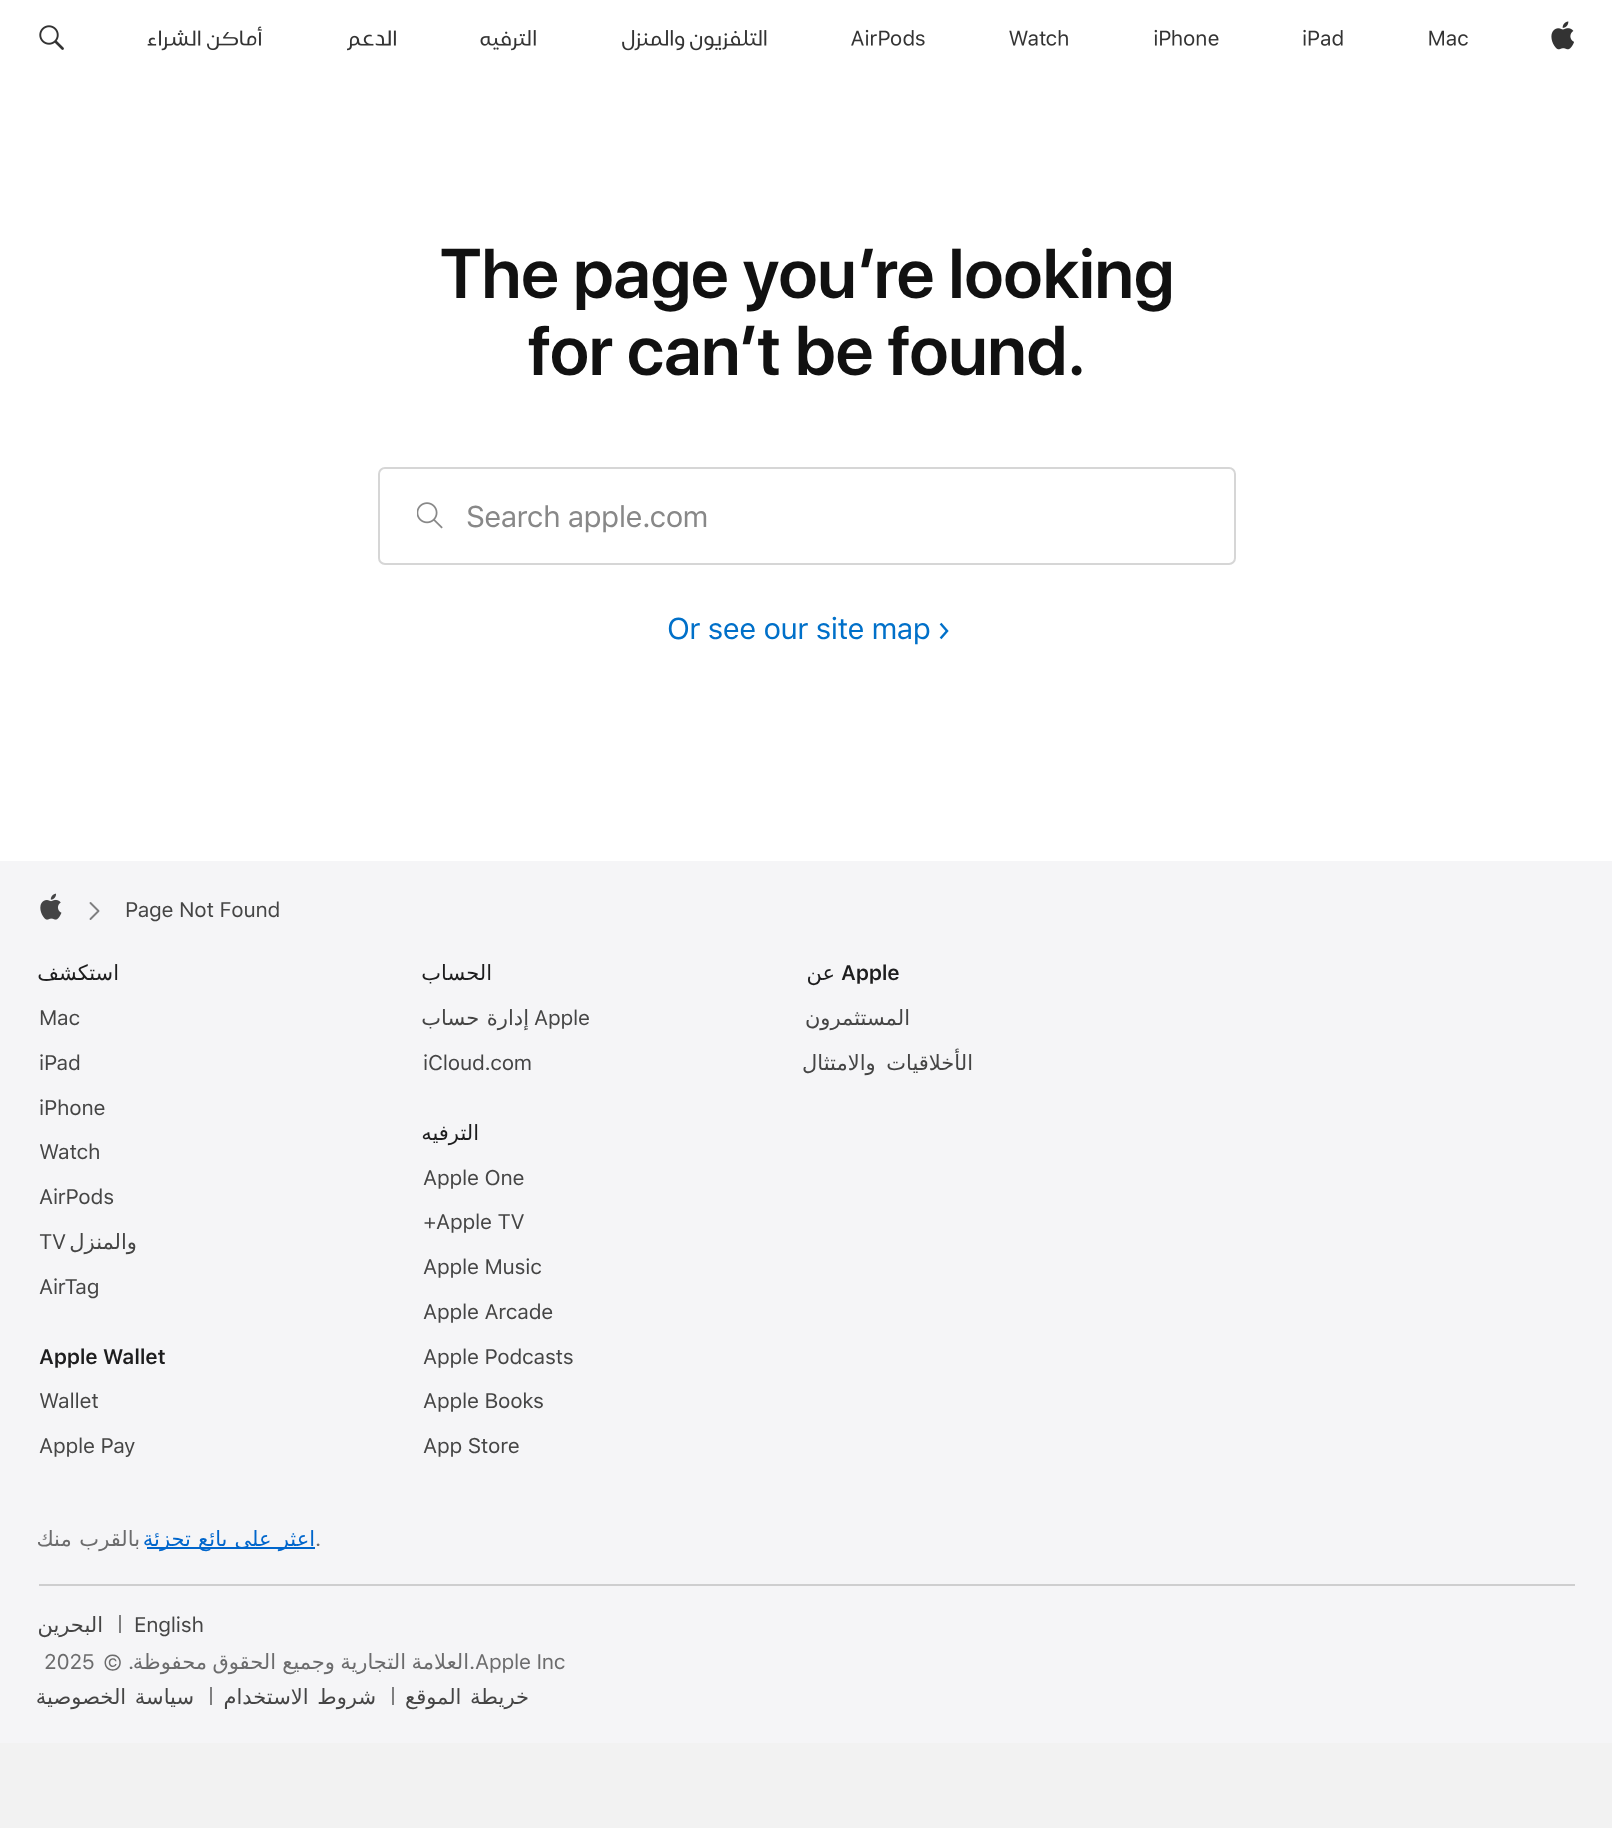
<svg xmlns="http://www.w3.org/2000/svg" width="1612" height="1828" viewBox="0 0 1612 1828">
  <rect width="100%" height="100%" fill="rgb(242,242,242)"/>
  <rect x="0" y="0" width="1612" height="861" fill="rgb(255,255,255)"/>
  <image x="39" y="25" width="25" height="25" href="pic1.png"/>
  <image x="147" y="26" width="115" height="25" href="pic2.png"/>
  <image x="347" y="30" width="49" height="21" href="pic3.png"/>
  <image x="480" y="30" width="56" height="21" href="pic4.png"/>
  <image x="622" y="30" width="145" height="21" href="pic5.png"/>
  <image x="851" y="29" width="74" height="17" href="pic6.png"/>
  <image x="1009" y="30" width="59" height="16" href="pic7.png"/>
  <image x="1154" y="29" width="65" height="17" href="pic8.png"/>
  <image x="1303" y="29" width="40" height="17" href="pic9.png"/>
  <image x="1429" y="30" width="39" height="16" href="pic10.png"/>
  <image x="1551" y="21" width="23" height="29" href="pic11.png"/>
  <g font-family="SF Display" font-size="70" font-weight="600" fill="rgb(17,17,17)">
    <text x="440" y="298">The page you’re looking</text>
    <text x="528" y="375">for can’t be found.</text>
  </g>
  <rect x="379" y="468" width="856" height="96" rx="6" fill="none" stroke="rgb(214,214,214)" stroke-width="2"/>
  <image x="417" y="502" width="26" height="27" href="pic12.png"/>
  <text x="466" y="527" font-family="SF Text" font-size="29.75" letter-spacing="-0.6" fill="rgb(136,136,136)">Search apple.com</text>
  <text x="667" y="639" font-family="SF Text" font-size="29.75" letter-spacing="-0.6" fill="rgb(0,112,201)">Or see our site map</text>
  <image x="939" y="622" width="10" height="18" href="pic13.png"/>
  <rect x="0" y="861" width="1612" height="882" fill="rgb(245,245,247)"/>
  <image x="40" y="893" width="22" height="27" href="pic14.png"/>
  <path d="M90.5 903L98.5 911L90.5 919" fill="none" stroke="rgb(127,127,128)" stroke-width="1.9" stroke-linecap="round" stroke-linejoin="round"/>
  <text x="125" y="917" font-family="SF Text" font-size="21" letter-spacing="-0.25" fill="rgb(69,69,69)">Page Not Found</text>
  <text x="119" y="980" font-family="DejaVu Sans" font-size="21" letter-spacing="-0.25" direction="rtl" fill="rgb(29,29,30)">استكشف</text>
  <g font-family="SF Text" font-size="21" letter-spacing="-0.25" fill="rgb(69,69,69)">
    <text x="39" y="1025">Mac</text>
    <text x="39" y="1070">iPad</text>
    <text x="39" y="1115">iPhone</text>
    <text x="39" y="1159">Watch</text>
    <text x="39" y="1204">AirPods</text>
    <text x="39" y="1249">TV</text>
  </g>
  <text x="137" y="1249" font-family="DejaVu Sans" font-size="21" letter-spacing="-0.25" direction="rtl" fill="rgb(69,69,69)">والمنزل</text>
  <text x="39" y="1294" font-family="SF Text" font-size="21" letter-spacing="-0.25" fill="rgb(69,69,69)">AirTag</text>
  <text x="39" y="1364" font-family="SF Text" font-size="21" font-weight="600" letter-spacing="-0.25" fill="rgb(29,29,30)">Apple Wallet</text>
  <g font-family="SF Text" font-size="21" letter-spacing="-0.25" fill="rgb(69,69,69)">
    <text x="39" y="1408">Wallet</text>
    <text x="39" y="1453">Apple Pay</text>
  </g>
  <text x="492" y="980" font-family="DejaVu Sans" font-size="21" letter-spacing="-0.25" direction="rtl" fill="rgb(29,29,30)">الحساب</text>
  <text x="529" y="1025" word-spacing="1" font-family="DejaVu Sans" font-size="21" letter-spacing="-0.25" direction="rtl" fill="rgb(69,69,69)">إدارة حساب</text>
  <g font-family="SF Text" font-size="21" letter-spacing="-0.25" fill="rgb(69,69,69)">
    <text x="534" y="1025">Apple</text>
    <text x="423" y="1070">iCloud.com</text>
  </g>
  <text x="479" y="1140" font-family="DejaVu Sans" font-size="21" letter-spacing="-0.25" direction="rtl" fill="rgb(29,29,30)">الترفيه</text>
  <g font-family="SF Text" font-size="21" letter-spacing="-0.25" fill="rgb(69,69,69)">
    <text x="423" y="1185">Apple One</text>
    <text x="423" y="1229">+Apple TV</text>
    <text x="423" y="1274">Apple Music</text>
    <text x="423" y="1319">Apple Arcade</text>
    <text x="423" y="1364">Apple Podcasts</text>
    <text x="423" y="1408">Apple Books</text>
    <text x="423" y="1453">App Store</text>
  </g>
  <text x="835" y="980" font-family="DejaVu Sans" font-size="21" letter-spacing="-0.25" direction="rtl" fill="rgb(29,29,30)">عن</text>
  <text x="841" y="980" font-family="SF Text" font-size="21" font-weight="600" letter-spacing="-0.25" fill="rgb(29,29,30)">Apple</text>
  <g font-family="DejaVu Sans" font-size="21" letter-spacing="-0.25" direction="rtl" fill="rgb(69,69,69)">
    <text x="910" y="1025">المستثمرون</text>
    <text x="973" y="1070" word-spacing="4">الأخلاقيات والامتثال</text>
  </g>
  <rect x="39" y="1584" width="1536" height="2" fill="rgb(206,206,207)"/>
  <text x="140" y="1546" word-spacing="1" font-family="DejaVu Sans" font-size="21" letter-spacing="-0.25" direction="rtl" fill="rgb(108,108,109)">بالقرب منك</text>
  <rect x="147" y="1547" width="168" height="2" fill="rgb(0,102,204)"/>
  <text x="315" y="1546" word-spacing="0.5" font-family="DejaVu Sans" font-size="21" letter-spacing="-0.25" direction="rtl" fill="rgb(0,102,204)">اعثر على بائع تجزئة</text>
  <text x="315" y="1546" font-family="SF Text" font-size="21" letter-spacing="-0.25" fill="rgb(108,108,109)">.</text>
  <text x="103" y="1632" font-family="DejaVu Sans" font-size="21" letter-spacing="-0.25" direction="rtl" fill="rgb(69,69,69)">البحرين</text>
  <rect x="119" y="1615" width="2" height="18" fill="rgb(127,127,128)"/>
  <text x="134" y="1632" font-family="SF Text" font-size="21" letter-spacing="-0.25" fill="rgb(69,69,69)">English</text>
  <text x="44" y="1669" font-family="SF Text" font-size="21" letter-spacing="-0.25" fill="rgb(108,108,109)">2025</text>
  <text x="134" y="1669" word-spacing="1" font-family="SF Text" font-size="21" letter-spacing="-0.25" direction="rtl" fill="rgb(108,108,109)">. ©</text>
  <g font-family="DejaVu Sans" font-size="21" letter-spacing="-0.25" direction="rtl" fill="rgb(108,108,109)">
    <text x="207" y="1669">محفوظة</text>
    <text x="276" y="1669">الحقوق</text>
    <text x="335" y="1669">وجميع</text>
    <text x="406" y="1669">التجارية</text>
    <text x="469" y="1669">العلامة</text>
  </g>
  <text x="469" y="1669" font-family="SF Text" font-size="21" letter-spacing="-0.25" fill="rgb(108,108,109)">.Apple Inc</text>
  <text x="194" y="1704" word-spacing="2" font-family="DejaVu Sans" font-size="21" letter-spacing="-0.25" direction="rtl" fill="rgb(69,69,69)">سياسة الخصوصية</text>
  <rect x="210" y="1687" width="2" height="18" fill="rgb(127,127,128)"/>
  <text x="376" y="1704" word-spacing="2" font-family="DejaVu Sans" font-size="21" letter-spacing="-0.25" direction="rtl" fill="rgb(69,69,69)">شروط الاستخدام</text>
  <rect x="392" y="1687" width="2" height="18" fill="rgb(127,127,128)"/>
  <text x="529" y="1704" word-spacing="2" font-family="DejaVu Sans" font-size="21" letter-spacing="-0.25" direction="rtl" fill="rgb(69,69,69)">خريطة الموقع</text>
</svg>
